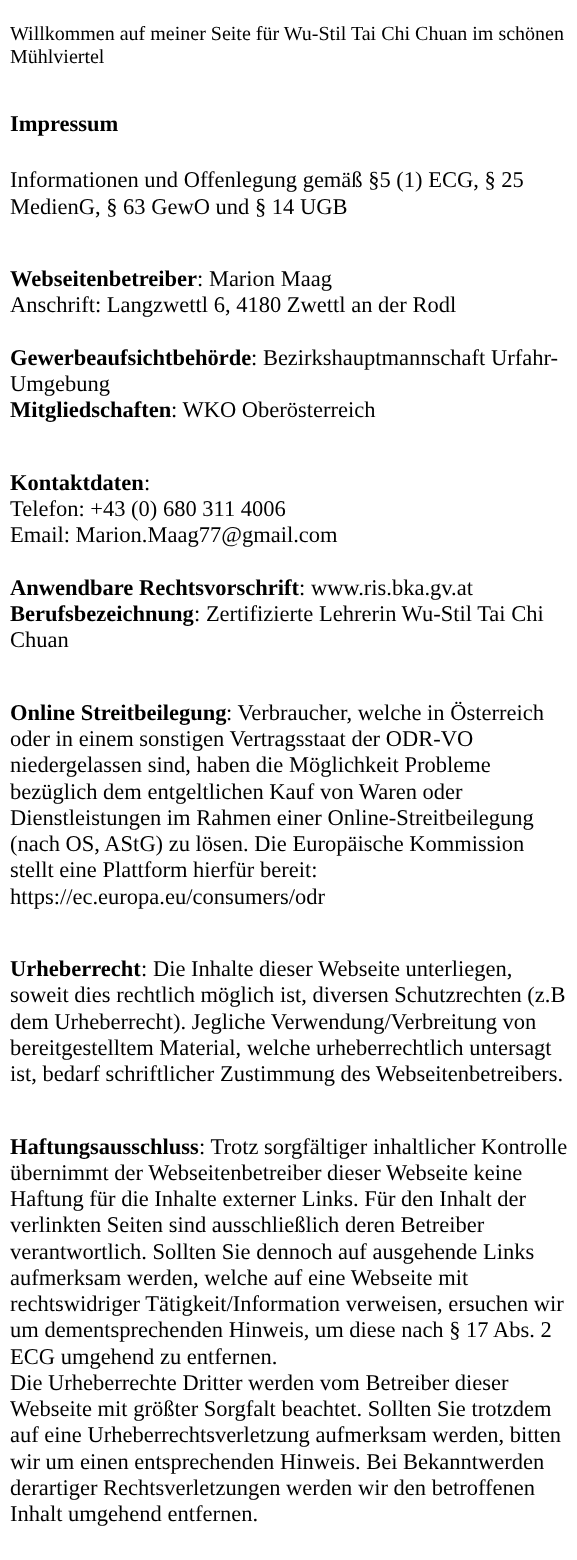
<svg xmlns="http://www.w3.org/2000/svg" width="577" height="1560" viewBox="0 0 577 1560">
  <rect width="100%" height="100%" fill="rgb(255,255,255)"/>
  <g font-family="Liberation Serif" font-size="20" fill="rgb(0,0,0)">
    <text>
      <tspan x="10" y="40">Willkommen auf meiner Seite für Wu-Stil Tai Chi Chuan im schönen</tspan>
      <tspan x="10" y="63">Mühlviertel</tspan>
    </text>
  </g>
  <text x="10" y="131" font-family="Liberation Serif" font-size="22.5" font-weight="bold" fill="rgb(0,0,0)">Impressum</text>
  <g font-family="Liberation Serif" font-size="22.5" fill="rgb(0,0,0)">
    <text>
      <tspan x="10" y="187">Informationen und Offenlegung gemäß §5 (1) ECG, § 25</tspan>
      <tspan x="10" y="214">MedienG, § 63 GewO und § 14 UGB</tspan>
    </text>
  </g>
  <text x="10" y="286" font-family="Liberation Serif" font-size="22.5" font-weight="bold" fill="rgb(0,0,0)">Webseitenbetreiber</text>
  <g font-family="Liberation Serif" font-size="22.5" fill="rgb(0,0,0)">
    <text x="197" y="286">: Marion Maag</text>
    <text x="10" y="312">Anschrift: Langzwettl 6, 4180 Zwettl an der Rodl</text>
  </g>
  <text x="10" y="365" font-family="Liberation Serif" font-size="22.5" font-weight="bold" fill="rgb(0,0,0)">Gewerbeaufsichtbehörde</text>
  <g font-family="Liberation Serif" font-size="22.5" fill="rgb(0,0,0)">
    <text x="251" y="365">: Bezirkshauptmannschaft Urfahr-</text>
    <text x="10" y="391">Umgebung</text>
  </g>
  <text x="10" y="417" font-family="Liberation Serif" font-size="22.5" font-weight="bold" fill="rgb(0,0,0)">Mitgliedschaften</text>
  <text x="171" y="417" font-family="Liberation Serif" font-size="22.5" fill="rgb(0,0,0)">: WKO Oberösterreich</text>
  <text x="10" y="490" font-family="Liberation Serif" font-size="22.5" font-weight="bold" fill="rgb(0,0,0)">Kontaktdaten</text>
  <g font-family="Liberation Serif" font-size="22.5" fill="rgb(0,0,0)">
    <text x="144" y="490">:</text>
    <text>
      <tspan x="10" y="516">Telefon: +43 (0) 680 311 4006</tspan>
      <tspan x="10" y="542">Email: Marion.Maag77@gmail.com</tspan>
    </text>
  </g>
  <text x="10" y="595" font-family="Liberation Serif" font-size="22.5" font-weight="bold" fill="rgb(0,0,0)">Anwendbare Rechtsvorschrift</text>
  <text x="299" y="595" font-family="Liberation Serif" font-size="22.5" fill="rgb(0,0,0)">: www.ris.bka.gv.at</text>
  <text x="10" y="621" font-family="Liberation Serif" font-size="22.5" font-weight="bold" fill="rgb(0,0,0)">Berufsbezeichnung</text>
  <g font-family="Liberation Serif" font-size="22.5" fill="rgb(0,0,0)">
    <text x="194" y="621">: Zertifizierte Lehrerin Wu-Stil Tai Chi</text>
    <text x="10" y="647">Chuan</text>
  </g>
  <text x="10" y="720" font-family="Liberation Serif" font-size="22.5" font-weight="bold" fill="rgb(0,0,0)">Online Streitbeilegung</text>
  <g font-family="Liberation Serif" font-size="22.5" fill="rgb(0,0,0)">
    <text x="226" y="720">: Verbraucher, welche in Österreich</text>
    <text>
      <tspan x="10" y="746">oder in einem sonstigen Vertragsstaat der ODR-VO</tspan>
      <tspan x="10" y="772">niedergelassen sind, haben die Möglichkeit Probleme</tspan>
      <tspan x="10" y="799">bezüglich dem entgeltlichen Kauf von Waren oder</tspan>
      <tspan x="10" y="825">Dienstleistungen im Rahmen einer Online-Streitbeilegung</tspan>
      <tspan x="10" y="851">(nach OS, AStG) zu lösen. Die Europäische Kommission</tspan>
      <tspan x="10" y="877">stellt eine Plattform hierfür bereit:</tspan>
      <tspan x="10" y="904">https://ec.europa.eu/consumers/odr</tspan>
    </text>
  </g>
  <text x="10" y="976" font-family="Liberation Serif" font-size="22.5" font-weight="bold" fill="rgb(0,0,0)">Urheberrecht</text>
  <g font-family="Liberation Serif" font-size="22.5" fill="rgb(0,0,0)">
    <text x="141" y="976">: Die Inhalte dieser Webseite unterliegen,</text>
    <text>
      <tspan x="10" y="1002">soweit dies rechtlich möglich ist, diversen Schutzrechten (z.B</tspan>
      <tspan x="10" y="1029">dem Urheberrecht). Jegliche Verwendung/Verbreitung von</tspan>
      <tspan x="10" y="1055">bereitgestelltem Material, welche urheberrechtlich untersagt</tspan>
      <tspan x="10" y="1081">ist, bedarf schriftlicher Zustimmung des Webseitenbetreibers.</tspan>
    </text>
  </g>
  <text x="10" y="1154" font-family="Liberation Serif" font-size="22.5" font-weight="bold" fill="rgb(0,0,0)">Haftungsausschluss</text>
  <g font-family="Liberation Serif" font-size="22.5" fill="rgb(0,0,0)">
    <text x="199" y="1154">: Trotz sorgfältiger inhaltlicher Kontrolle</text>
    <text>
      <tspan x="10" y="1180">übernimmt der Webseitenbetreiber dieser Webseite keine</tspan>
      <tspan x="10" y="1206">Haftung für die Inhalte externer Links. Für den Inhalt der</tspan>
      <tspan x="10" y="1232">verlinkten Seiten sind ausschließlich deren Betreiber</tspan>
      <tspan x="10" y="1259">verantwortlich. Sollten Sie dennoch auf ausgehende Links</tspan>
      <tspan x="10" y="1285">aufmerksam werden, welche auf eine Webseite mit</tspan>
      <tspan x="10" y="1311">rechtswidriger Tätigkeit/Information verweisen, ersuchen wir</tspan>
      <tspan x="10" y="1337">um dementsprechenden Hinweis, um diese nach § 17 Abs. 2</tspan>
      <tspan x="10" y="1364">ECG umgehend zu entfernen.</tspan>
      <tspan x="10" y="1390">Die Urheberrechte Dritter werden vom Betreiber dieser</tspan>
      <tspan x="10" y="1416">Webseite mit größter Sorgfalt beachtet. Sollten Sie trotzdem</tspan>
      <tspan x="10" y="1442">auf eine Urheberrechtsverletzung aufmerksam werden, bitten</tspan>
      <tspan x="10" y="1469">wir um einen entsprechenden Hinweis. Bei Bekanntwerden</tspan>
      <tspan x="10" y="1495">derartiger Rechtsverletzungen werden wir den betroffenen</tspan>
      <tspan x="10" y="1521">Inhalt umgehend entfernen.</tspan>
    </text>
  </g>
</svg>
